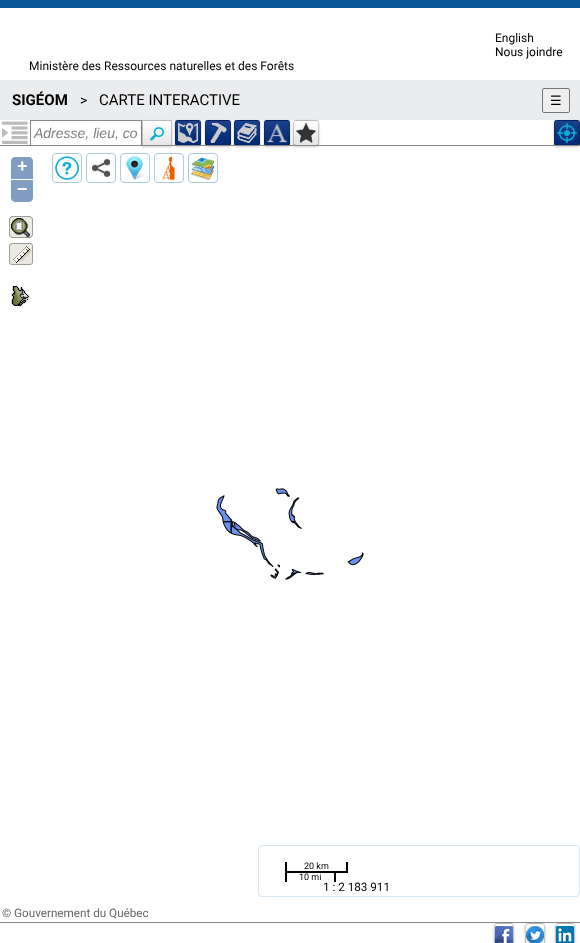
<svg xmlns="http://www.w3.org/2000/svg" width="580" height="943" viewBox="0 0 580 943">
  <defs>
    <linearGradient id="g1" gradientUnits="userSpaceOnUse" x1="157" y1="121" x2="157" y2="97"><stop offset="0" stop-color="rgb(230,230,230)"/><stop offset="1" stop-color="rgb(255,255,255)"/></linearGradient>
    <linearGradient id="g2" gradientUnits="userSpaceOnUse" x1="157" y1="145" x2="157" y2="121"><stop offset="0" stop-color="rgb(230,230,230)"/><stop offset="1" stop-color="rgb(255,255,255)"/></linearGradient>
    <linearGradient id="g3" gradientUnits="userSpaceOnUse" x1="188" y1="121" x2="188" y2="97"><stop offset="0" stop-color="rgb(0,0,0)" stop-opacity="0.1"/><stop offset="1" stop-color="rgb(255,255,255)" stop-opacity="0.1"/></linearGradient>
    <linearGradient id="g4" gradientUnits="userSpaceOnUse" x1="188" y1="145" x2="188" y2="121"><stop offset="0" stop-color="rgb(0,0,0)" stop-opacity="0.1"/><stop offset="1" stop-color="rgb(255,255,255)" stop-opacity="0.1"/></linearGradient>
    <linearGradient id="g5" gradientUnits="userSpaceOnUse" x1="218" y1="121" x2="218" y2="97"><stop offset="0" stop-color="rgb(0,0,0)" stop-opacity="0.1"/><stop offset="1" stop-color="rgb(255,255,255)" stop-opacity="0.1"/></linearGradient>
    <linearGradient id="g6" gradientUnits="userSpaceOnUse" x1="218" y1="145" x2="218" y2="121"><stop offset="0" stop-color="rgb(0,0,0)" stop-opacity="0.1"/><stop offset="1" stop-color="rgb(255,255,255)" stop-opacity="0.1"/></linearGradient>
    <linearGradient id="g7" gradientUnits="userSpaceOnUse" x1="247" y1="121" x2="247" y2="97"><stop offset="0" stop-color="rgb(0,0,0)" stop-opacity="0.1"/><stop offset="1" stop-color="rgb(255,255,255)" stop-opacity="0.1"/></linearGradient>
    <linearGradient id="g8" gradientUnits="userSpaceOnUse" x1="247" y1="145" x2="247" y2="121"><stop offset="0" stop-color="rgb(0,0,0)" stop-opacity="0.1"/><stop offset="1" stop-color="rgb(255,255,255)" stop-opacity="0.1"/></linearGradient>
    <linearGradient id="g9" gradientUnits="userSpaceOnUse" x1="277" y1="121" x2="277" y2="97"><stop offset="0" stop-color="rgb(0,0,0)" stop-opacity="0.1"/><stop offset="1" stop-color="rgb(255,255,255)" stop-opacity="0.1"/></linearGradient>
    <linearGradient id="g10" gradientUnits="userSpaceOnUse" x1="277" y1="145" x2="277" y2="121"><stop offset="0" stop-color="rgb(0,0,0)" stop-opacity="0.1"/><stop offset="1" stop-color="rgb(255,255,255)" stop-opacity="0.1"/></linearGradient>
    <clipPath id="clip1"><rect x="293" y="120" width="26" height="26" rx="3"/></clipPath>
    <linearGradient id="g11" gradientUnits="userSpaceOnUse" x1="306" y1="121" x2="306" y2="97"><stop offset="0" stop-color="rgb(229,229,229)"/><stop offset="1" stop-color="rgb(255,255,255)"/></linearGradient>
    <linearGradient id="g12" gradientUnits="userSpaceOnUse" x1="306" y1="145" x2="306" y2="121"><stop offset="0" stop-color="rgb(0,0,0)" stop-opacity="0.1"/><stop offset="1" stop-color="rgb(255,255,255)" stop-opacity="0.1"/></linearGradient>
    <linearGradient id="g13" gradientUnits="userSpaceOnUse" x1="567" y1="121" x2="567" y2="97"><stop offset="0" stop-color="rgb(0,0,0)" stop-opacity="0.1"/><stop offset="1" stop-color="rgb(255,255,255)" stop-opacity="0.1"/></linearGradient>
    <linearGradient id="g14" gradientUnits="userSpaceOnUse" x1="567" y1="145" x2="567" y2="121"><stop offset="0" stop-color="rgb(0,0,0)" stop-opacity="0.1"/><stop offset="1" stop-color="rgb(255,255,255)" stop-opacity="0.1"/></linearGradient>
    <clipPath id="clip2"><rect x="494" y="923" width="20" height="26" rx="3"/></clipPath>
    <linearGradient id="g15" gradientUnits="userSpaceOnUse" x1="504" y1="924" x2="504" y2="900"><stop offset="0" stop-color="rgb(229,229,229)"/><stop offset="1" stop-color="rgb(255,255,255)"/></linearGradient>
    <linearGradient id="g16" gradientUnits="userSpaceOnUse" x1="504" y1="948" x2="504" y2="924"><stop offset="0" stop-color="rgb(0,0,0)" stop-opacity="0.1"/><stop offset="1" stop-color="rgb(255,255,255)" stop-opacity="0.1"/></linearGradient>
    <clipPath id="clip3"><rect x="525" y="923" width="20" height="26" rx="3"/></clipPath>
    <linearGradient id="g17" gradientUnits="userSpaceOnUse" x1="535" y1="924" x2="535" y2="900"><stop offset="0" stop-color="rgb(229,229,229)"/><stop offset="1" stop-color="rgb(255,255,255)"/></linearGradient>
    <linearGradient id="g18" gradientUnits="userSpaceOnUse" x1="535" y1="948" x2="535" y2="924"><stop offset="0" stop-color="rgb(0,0,0)" stop-opacity="0.1"/><stop offset="1" stop-color="rgb(255,255,255)" stop-opacity="0.1"/></linearGradient>
    <clipPath id="clip4"><rect x="555" y="923" width="20" height="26" rx="3"/></clipPath>
    <linearGradient id="g19" gradientUnits="userSpaceOnUse" x1="565" y1="924" x2="565" y2="900"><stop offset="0" stop-color="rgb(229,229,229)"/><stop offset="1" stop-color="rgb(255,255,255)"/></linearGradient>
    <linearGradient id="g20" gradientUnits="userSpaceOnUse" x1="565" y1="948" x2="565" y2="924"><stop offset="0" stop-color="rgb(0,0,0)" stop-opacity="0.1"/><stop offset="1" stop-color="rgb(255,255,255)" stop-opacity="0.1"/></linearGradient>
  </defs>
  <rect width="100%" height="100%" fill="rgb(255,255,255)"/>
  <rect x="0" y="0" width="580" height="8" fill="rgb(9,87,151)"/>
  <g font-family="Roboto" font-size="12" fill="rgb(0,0,0)">
    <text>
      <tspan x="495" y="42">English</tspan>
      <tspan x="495" y="56">Nous joindre</tspan>
    </text>
    <text x="29" y="70">Ministère des Ressources naturelles et des Forêts</text>
  </g>
  <rect x="0" y="80" width="580" height="40" fill="rgb(235,236,238)"/>
  <text x="12" y="105" font-family="Roboto" font-size="15" font-weight="bold" fill="rgb(0,0,0)">SIGÉOM</text>
  <text x="80" y="105" font-family="Roboto" font-size="14" fill="rgb(0,0,0)">&gt;</text>
  <text x="99" y="105" font-family="Roboto" font-size="15" fill="rgb(0,0,0)">CARTE INTERACTIVE</text>
  <rect x="542.5" y="88.5" width="27" height="24" rx="1.5" fill="rgb(239,239,239)" stroke="rgb(118,118,118)"/>
  <text x="550" y="105" font-family="DejaVu Sans" font-size="13" fill="rgb(0,0,0)">☰</text>
  <image x="2" y="121" width="26" height="23" href="pic1.png"/>
  <rect x="30.5" y="120.5" width="111" height="25" fill="none" stroke="rgb(136,136,136)"/>
  <text x="34" y="138" font-family="Liberation Sans" font-size="14" font-style="italic" fill="rgb(128,128,128)">Adresse, lieu, co</text>
  <rect x="142" y="121" width="30" height="26" fill="rgba(0,0,0,0.2)" filter="blur(1px)"/>
  <rect x="142" y="120" width="30" height="1" fill="url(#g1)"/>
  <rect x="142" y="121" width="30" height="24" fill="url(#g2)"/>
  <path d="M142 120H172L171 121H143Z" fill="rgb(185,185,185)"/>
  <path d="M172 120V146L171 145V121ZM142 146V120L143 121V145Z" fill="rgba(0,0,0,0.2)"/>
  <image x="150" y="123" width="16" height="18" href="pic2.png"/>
  <rect x="175" y="121" width="26" height="26" rx="3" fill="rgba(0,0,0,0.2)" filter="blur(1px)"/>
  <rect x="175" y="120" width="26" height="26" rx="3" fill="rgb(0,44,127)"/>
  <rect x="175" y="120" width="26" height="1" fill="url(#g3)"/>
  <rect x="175" y="121" width="26" height="24" fill="url(#g4)"/>
  <path d="M200 145C199.5 145 198.5 145.5 198 145.5H178C177.5 145.5 176.5 145 176 145" fill="none" stroke="rgba(0,0,0,0.4)"/>
  <path d="M176 145C175 143.5 175.5 141 175.5 139.5V133C175.5 118.5 173.5 120.5 188 120.5C202.5 120.5 200.5 118.5 200.5 133V139.5C200.5 141 201 143.5 200 145" fill="none" stroke="rgba(0,0,0,0.2)"/>
  <image x="178" y="123" width="20" height="20" href="pic3.png"/>
  <rect x="205" y="121" width="26" height="26" rx="3" fill="rgba(0,0,0,0.2)" filter="blur(1px)"/>
  <rect x="205" y="120" width="26" height="26" rx="3" fill="rgb(0,44,127)"/>
  <rect x="205" y="120" width="26" height="1" fill="url(#g5)"/>
  <rect x="205" y="121" width="26" height="24" fill="url(#g6)"/>
  <path d="M230 145C229.5 145 228.5 145.5 228 145.5H208C207.5 145.5 206.5 145 206 145" fill="none" stroke="rgba(0,0,0,0.4)"/>
  <path d="M206 145C205 143.5 205.5 141 205.5 139.5V133C205.5 118.5 203.5 120.5 218 120.5C232.5 120.5 230.5 118.5 230.5 133V139.5C230.5 141 231 143.5 230 145" fill="none" stroke="rgba(0,0,0,0.2)"/>
  <image x="210" y="123" width="17" height="20" href="pic4.png"/>
  <rect x="234" y="121" width="26" height="26" rx="3" fill="rgba(0,0,0,0.2)" filter="blur(1px)"/>
  <rect x="234" y="120" width="26" height="26" rx="3" fill="rgb(0,44,127)"/>
  <rect x="234" y="120" width="26" height="1" fill="url(#g7)"/>
  <rect x="234" y="121" width="26" height="24" fill="url(#g8)"/>
  <path d="M259 145C258.5 145 257.5 145.5 257 145.5H237C236.5 145.5 235.5 145 235 145" fill="none" stroke="rgba(0,0,0,0.4)"/>
  <path d="M235 145C234 143.5 234.5 141 234.5 139.5V133C234.5 118.5 232.5 120.5 247 120.5C261.5 120.5 259.5 118.5 259.5 133V139.5C259.5 141 260 143.5 259 145" fill="none" stroke="rgba(0,0,0,0.2)"/>
  <image x="237" y="123" width="20" height="20" href="pic5.png"/>
  <rect x="264" y="121" width="26" height="26" rx="3" fill="rgba(0,0,0,0.2)" filter="blur(1px)"/>
  <rect x="264" y="120" width="26" height="26" rx="3" fill="rgb(0,44,127)"/>
  <rect x="264" y="120" width="26" height="1" fill="url(#g9)"/>
  <rect x="264" y="121" width="26" height="24" fill="url(#g10)"/>
  <path d="M289 145C288.5 145 287.5 145.5 287 145.5H267C266.5 145.5 265.5 145 265 145" fill="none" stroke="rgba(0,0,0,0.4)"/>
  <path d="M265 145C264 143.5 264.5 141 264.5 139.5V133C264.5 118.5 262.5 120.5 277 120.5C291.5 120.5 289.5 118.5 289.5 133V139.5C289.5 141 290 143.5 289 145" fill="none" stroke="rgba(0,0,0,0.2)"/>
  <image x="267" y="124" width="20" height="19" href="pic6.png"/>
  <rect x="293" y="121" width="26" height="26" rx="3" fill="rgba(0,0,0,0.2)" filter="blur(1px)"/>
  <rect x="293" y="120" width="26" height="26" rx="3" fill="rgb(255,255,255)"/>
  <g clip-path="url(#clip1)">
    <rect x="293" y="120" width="26" height="1" fill="url(#g11)"/>
  </g>
  <rect x="293" y="123" width="26" height="22" fill="url(#g12)"/>
  <path d="M318 145C317.5 145 316.5 145.5 316 145.5H296C295.5 145.5 294.5 145 294 145" fill="none" stroke="rgba(0,0,0,0.4)"/>
  <path d="M294 145C293 143.5 293.5 141 293.5 139.5V133C293.5 118.5 291.5 120.5 306 120.5C320.5 120.5 318.5 118.5 318.5 133V139.5C318.5 141 319 143.5 318 145" fill="none" stroke="rgba(0,0,0,0.2)"/>
  <image x="296" y="123" width="20" height="20" href="pic7.png"/>
  <rect x="554" y="121" width="26" height="26" rx="3" fill="rgba(0,0,0,0.2)" filter="blur(1px)"/>
  <rect x="554" y="120" width="26" height="26" rx="3" fill="rgb(0,44,127)"/>
  <rect x="554" y="120" width="26" height="1" fill="url(#g13)"/>
  <rect x="554" y="121" width="26" height="24" fill="url(#g14)"/>
  <path d="M579 145C578.5 145 577.5 145.5 577 145.5H557C556.5 145.5 555.5 145 555 145" fill="none" stroke="rgba(0,0,0,0.4)"/>
  <path d="M555 145C554 143.5 554.5 141 554.5 139.5V133C554.5 118.5 552.5 120.5 567 120.5C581.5 120.5 579.5 118.5 579.5 133V139.5C579.5 141 580 143.5 579 145" fill="none" stroke="rgba(0,0,0,0.2)"/>
  <image x="557" y="123" width="20" height="20" href="pic8.png"/>
  <rect x="0" y="145" width="580" height="1" fill="rgb(136,136,136)"/>
  <rect x="0" y="922" width="580" height="1" fill="rgb(136,136,136)"/>
  <path d="M15 157H29C31 157 33 159 33 161V179H11V161C11 159 13 157 15 157Z" fill="rgb(128,158,196)"/>
  <text x="17" y="172" font-family="Liberation Sans" font-size="18" font-weight="bold" fill="rgb(255,255,255)">+</text>
  <path d="M11 180H33V198C33 200 31 202 29 202H15C13 202 11 200 11 198Z" fill="rgb(128,158,196)"/>
  <text x="17" y="195" font-family="Liberation Sans" font-size="18" font-weight="bold" fill="rgb(255,255,255)">−</text>
  <rect x="52.5" y="153.5" width="29" height="29" rx="3.5" fill="none" stroke="rgb(171,203,227)"/>
  <image x="55" y="156" width="24" height="24" href="pic9.png"/>
  <rect x="86.5" y="153.5" width="29" height="29" rx="3.5" fill="none" stroke="rgb(171,203,227)"/>
  <image x="92" y="159" width="19" height="18" href="pic10.png"/>
  <rect x="120.5" y="153.5" width="29" height="29" rx="3.5" fill="none" stroke="rgb(171,203,227)"/>
  <image x="126" y="156" width="18" height="24" href="pic11.png"/>
  <rect x="154.5" y="153.5" width="29" height="29" rx="3.5" fill="none" stroke="rgb(171,203,227)"/>
  <image x="162" y="156" width="13" height="24" href="pic12.png"/>
  <rect x="188.5" y="153.5" width="29" height="29" rx="3.5" fill="none" stroke="rgb(171,203,227)"/>
  <image x="191" y="157" width="24" height="23" href="pic13.png"/>
  <image x="9" y="216" width="24" height="22" href="pic14.png"/>
  <image x="9" y="243" width="24" height="22" href="pic15.png"/>
  <image x="11" y="286" width="19" height="20" href="pic16.png"/>
  <image x="216" y="488" width="148" height="92" href="pic17.png"/>
  <rect x="258.5" y="845.5" width="321" height="51" rx="3.5" fill="none" stroke="rgb(213,229,241)"/>
  <rect x="346" y="862" width="2" height="11" fill="rgb(0,0,0)"/>
  <rect x="285" y="871" width="63" height="2" fill="rgb(0,0,0)"/>
  <rect x="285" y="862" width="2" height="20" fill="rgb(0,0,0)"/>
  <text x="304" y="869" font-family="Roboto" font-size="9" fill="rgb(0,0,0)">20 km</text>
  <rect x="334" y="871" width="2" height="11" fill="rgb(0,0,0)"/>
  <text x="299" y="880" font-family="Roboto" font-size="9" fill="rgb(0,0,0)">10 mi</text>
  <text x="323" y="891" font-family="Roboto" font-size="11.7" fill="rgb(0,0,0)">1 : 2 183 911</text>
  <text x="2" y="917" font-family="Roboto" font-size="11.7" fill="rgb(102,102,102)">© Gouvernement du Québec</text>
  <rect x="494" y="924" width="20" height="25" rx="3" fill="rgba(0,0,0,0.2)" filter="blur(1px)"/>
  <rect x="494" y="923" width="20" height="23" rx="3" fill="rgb(255,255,255)"/>
  <g clip-path="url(#clip2)">
    <rect x="494" y="923" width="20" height="1" fill="url(#g15)"/>
  </g>
  <rect x="494" y="926" width="20" height="17" fill="url(#g16)"/>
  <path d="M495 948C494 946.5 494.5 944 494.5 942.5V936C494.5 923 492 923.5 504 923.5C516 923.5 513.5 923 513.5 936V942.5C513.5 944 514 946.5 513 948" fill="none" stroke="rgba(0,0,0,0.2)"/>
  <image x="495" y="926" width="18" height="17" href="pic18.png"/>
  <rect x="525" y="924" width="20" height="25" rx="3" fill="rgba(0,0,0,0.2)" filter="blur(1px)"/>
  <rect x="525" y="923" width="20" height="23" rx="3" fill="rgb(255,255,255)"/>
  <g clip-path="url(#clip3)">
    <rect x="525" y="923" width="20" height="1" fill="url(#g17)"/>
  </g>
  <rect x="525" y="926" width="20" height="17" fill="url(#g18)"/>
  <path d="M526 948C525 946.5 525.5 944 525.5 942.5V936C525.5 923 523 923.5 535 923.5C547 923.5 544.5 923 544.5 936V942.5C544.5 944 545 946.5 544 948" fill="none" stroke="rgba(0,0,0,0.2)"/>
  <image x="526" y="926" width="18" height="17" href="pic19.png"/>
  <rect x="555" y="924" width="20" height="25" rx="3" fill="rgba(0,0,0,0.2)" filter="blur(1px)"/>
  <rect x="555" y="923" width="20" height="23" rx="3" fill="rgb(255,255,255)"/>
  <g clip-path="url(#clip4)">
    <rect x="555" y="923" width="20" height="1" fill="url(#g19)"/>
  </g>
  <rect x="555" y="926" width="20" height="17" fill="url(#g20)"/>
  <path d="M556 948C555 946.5 555.5 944 555.5 942.5V936C555.5 923 553 923.5 565 923.5C577 923.5 574.5 923 574.5 936V942.5C574.5 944 575 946.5 574 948" fill="none" stroke="rgba(0,0,0,0.2)"/>
  <image x="556" y="926" width="18" height="17" href="pic20.png"/>
</svg>
